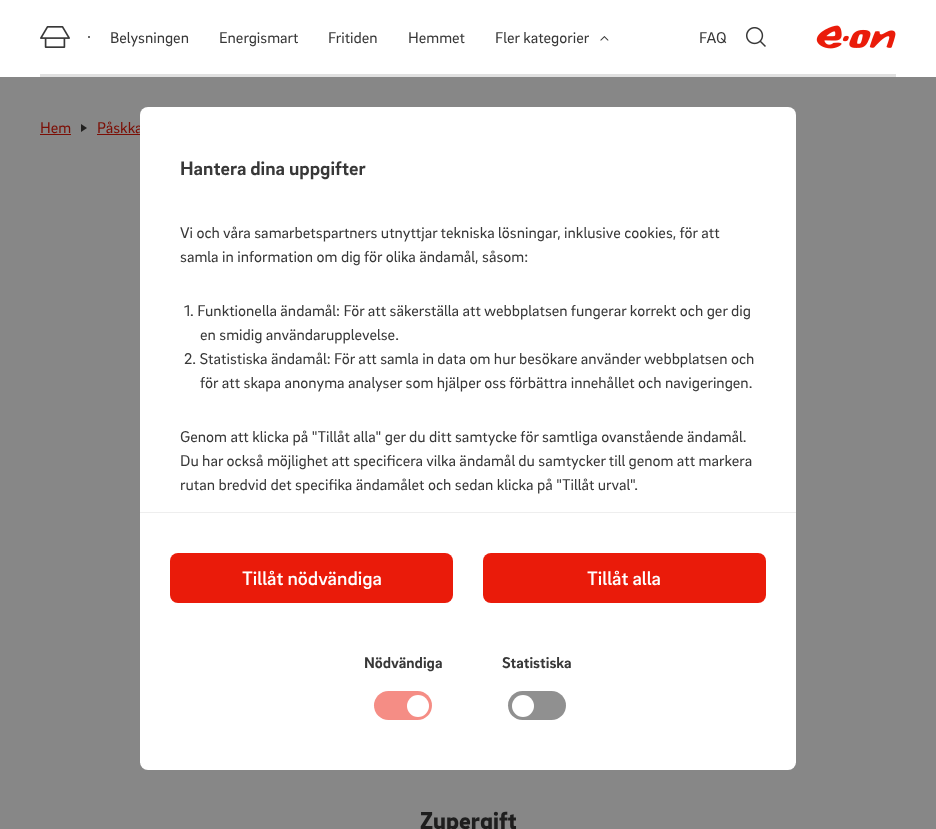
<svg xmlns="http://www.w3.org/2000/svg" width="936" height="829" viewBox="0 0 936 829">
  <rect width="100%" height="100%" fill="rgb(135,135,135)"/>
  <rect x="0" y="0" width="936" height="77" fill="rgb(255,255,255)"/>
  <rect x="40" y="74" width="856" height="3" fill="rgb(224,224,224)"/>
  <image x="40" y="26" width="30" height="22" href="pic1.png"/>
  <circle cx="89" cy="37" r="1" fill="rgb(56,56,56)"/>
  <g font-family="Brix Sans" font-size="16" fill="rgb(56,56,56)">
    <text x="110" y="43">Belysningen</text>
    <text x="219" y="43">Energismart</text>
    <text x="328" y="43">Fritiden</text>
    <text x="408" y="43">Hemmet</text>
    <text x="495" y="43">Fler kategorier</text>
  </g>
  <image x="600" y="36" width="9" height="5" href="pic2.png"/>
  <text x="699" y="43" font-family="Brix Sans" font-size="16" fill="rgb(56,56,56)">FAQ</text>
  <image x="746" y="27" width="20" height="20" href="pic3.png"/>
  <image x="816" y="25" width="80" height="24" href="pic4.png"/>
  <text x="40" y="133" font-family="Brix Sans" font-size="16" fill="rgb(124,14,5)">Hem</text>
  <rect x="40" y="134" width="31" height="1" fill="rgb(124,14,5)"/>
  <path d="M81 132V124L87 128Z" fill="rgb(33,32,31)"/>
  <text x="97" y="133" font-family="Brix Sans" font-size="16" fill="rgb(124,14,5)">Påskka</text>
  <rect x="97" y="134" width="43" height="1" fill="rgb(124,14,5)"/>
  <text x="420" y="829" font-family="Brix Sans" font-size="25" font-weight="900" fill="rgb(30,30,30)">Zupergift</text>
  <rect x="140" y="107" width="656" height="663" rx="8" fill="rgb(255,255,255)"/>
  <text x="180" y="175" font-family="Brix Sans" font-size="20" font-weight="bold" fill="rgb(56,56,56)">Hantera dina uppgifter</text>
  <g font-family="Brix Sans" font-size="16" fill="rgb(56,56,56)">
    <text>
      <tspan x="180" y="238">Vi och våra samarbetspartners utnyttjar tekniska lösningar, inklusive cookies, för att</tspan>
      <tspan x="180" y="262">samla in information om dig för olika ändamål, såsom:</tspan>
    </text>
    <text x="184" y="316">1. Funktionella ändamål: För att säkerställa att webbplatsen fungerar korrekt och ger dig</text>
    <text x="200" y="340">en smidig användarupplevelse.</text>
    <text x="184" y="364">2. Statistiska ändamål: För att samla in data om hur besökare använder webbplatsen och</text>
    <text x="200" y="388">för att skapa anonyma analyser som hjälper oss förbättra innehållet och navigeringen.</text>
    <text>
      <tspan x="180" y="442">Genom att klicka på "Tillåt alla" ger du ditt samtycke för samtliga ovanstående ändamål.</tspan>
      <tspan x="180" y="466">Du har också möjlighet att specificera vilka ändamål du samtycker till genom att markera</tspan>
      <tspan x="180" y="490">rutan bredvid det specifika ändamålet och sedan klicka på "Tillåt urval".</tspan>
    </text>
  </g>
  <rect x="140" y="512" width="656" height="1" fill="rgb(238,238,238)"/>
  <rect x="170" y="553" width="283" height="50" rx="8" fill="rgb(234,27,10)"/>
  <text x="242" y="585" font-family="Brix Sans" font-size="20" font-weight="500" fill="rgb(255,255,255)">Tillåt nödvändiga</text>
  <rect x="483" y="553" width="283" height="50" rx="8" fill="rgb(234,27,10)"/>
  <text x="587" y="585" font-family="Brix Sans" font-size="20" font-weight="500" fill="rgb(255,255,255)">Tillåt alla</text>
  <text x="364" y="668" font-family="Brix Sans" font-size="16" font-weight="bold" fill="rgb(56,56,56)">Nödvändiga</text>
  <rect x="374" y="691" width="58" height="29" rx="14.5" fill="rgb(245,141,133)"/>
  <circle cx="418" cy="706" r="11" fill="rgb(255,255,255)"/>
  <text x="502" y="668" font-family="Brix Sans" font-size="16" font-weight="bold" fill="rgb(56,56,56)">Statistiska</text>
  <rect x="508" y="691" width="58" height="29" rx="14.5" fill="rgb(144,144,144)"/>
  <circle cx="523" cy="706" r="11" fill="rgb(255,255,255)"/>
</svg>
